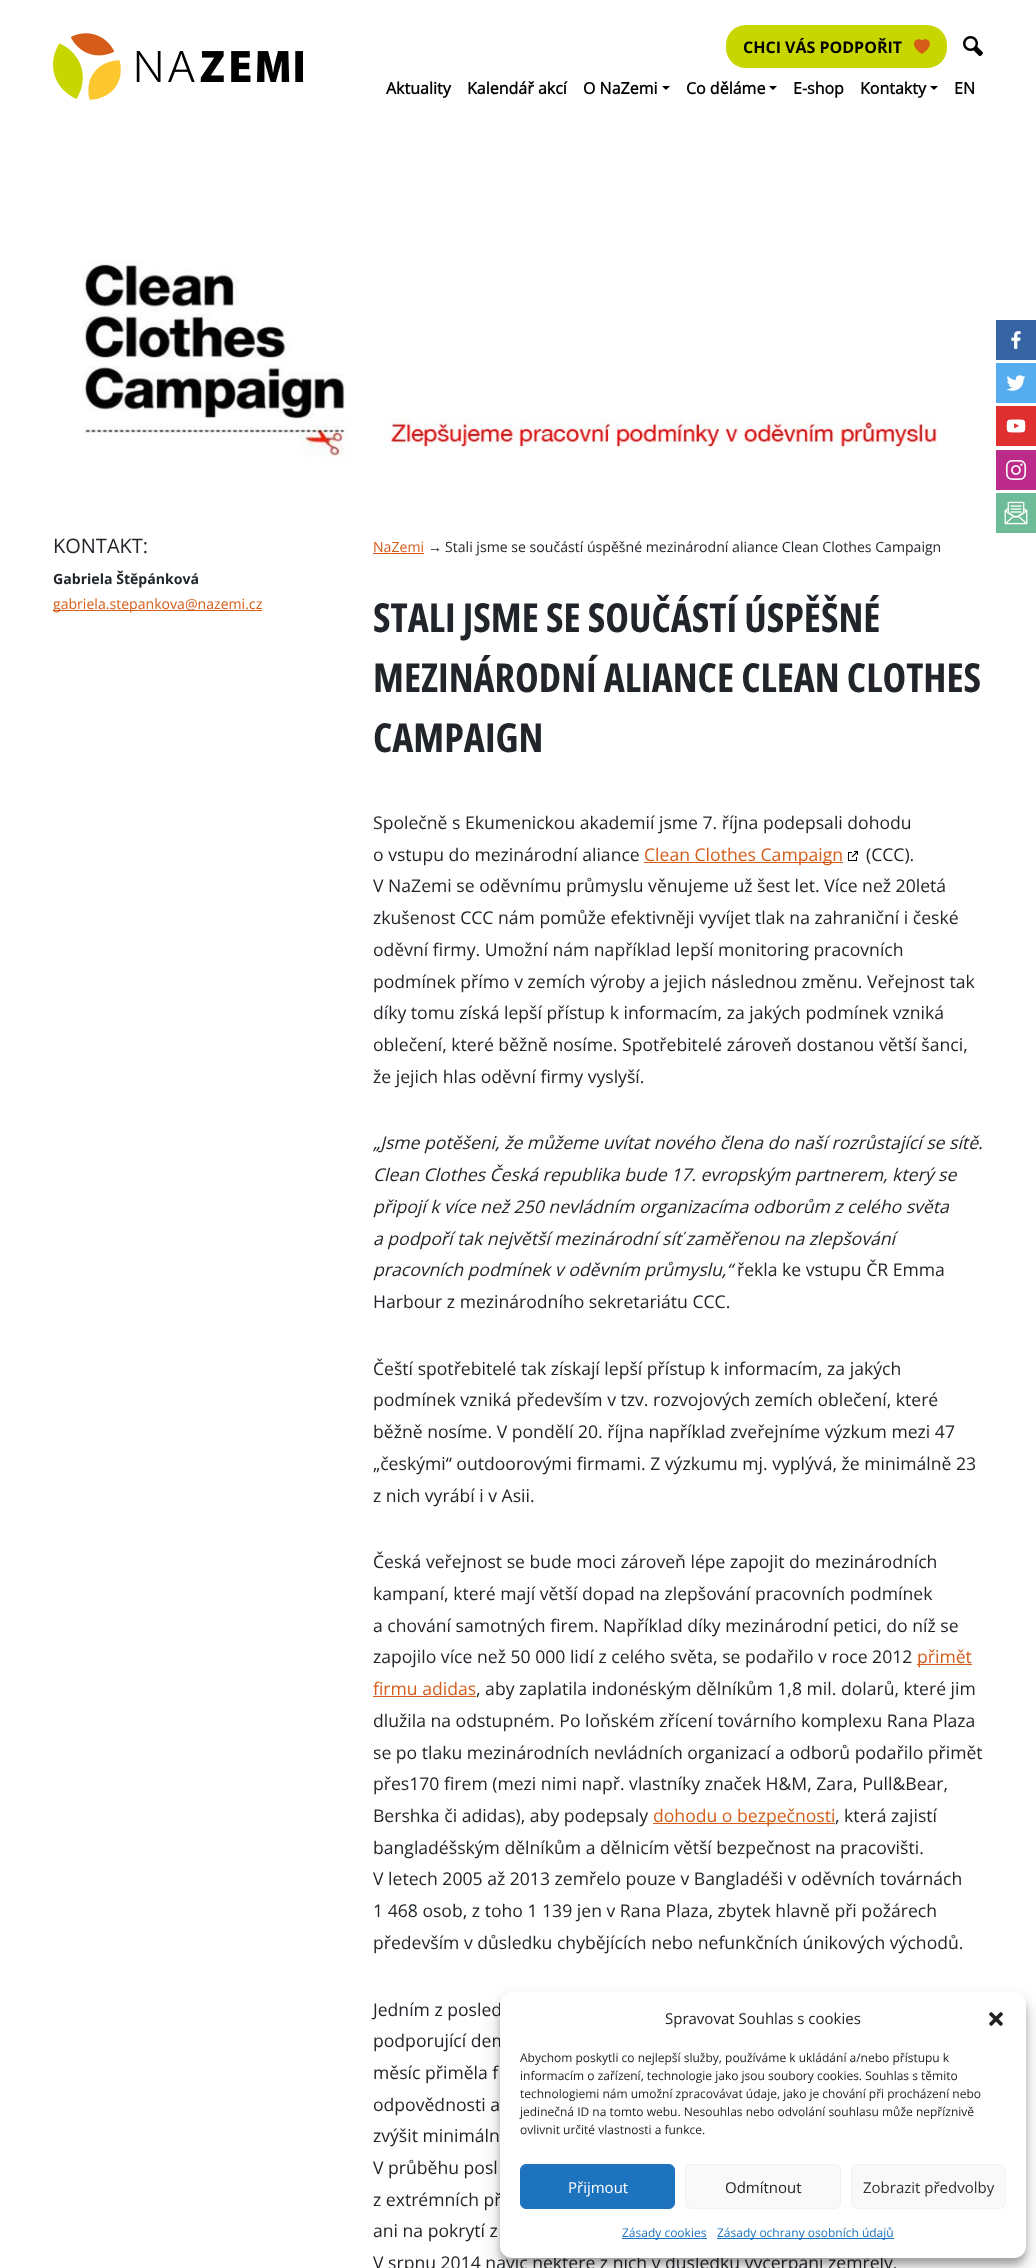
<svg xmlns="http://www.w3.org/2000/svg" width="1036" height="2268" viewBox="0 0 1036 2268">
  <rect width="100%" height="100%" fill="rgb(255,255,255)"/>
  <image x="53" y="33" width="250" height="67" href="pic1.png"/>
  <rect x="726" y="25" width="221" height="43" rx="20" fill="rgb(200,214,0)"/>
  <text x="743" y="53" font-family="Open Sans" font-size="16" font-weight="bold" fill="rgb(0,0,0)">CHCI VÁS PODPOŘIT</text>
  <path d="M922 40.5C926.5 36 937.5 43.5 922 54C906.5 43.5 917.5 36 922 40.5Z" fill="rgb(213,92,25)" fill-rule="evenodd"/>
  <image x="963" y="36" width="20" height="21" href="pic2.png"/>
  <g font-family="'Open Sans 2'" font-size="16" font-weight="bold" fill="rgb(0,0,0)">
    <text x="386" y="94">Aktuality</text>
    <text x="467" y="94">Kalendář akcí</text>
    <text x="583" y="94">O NaZemi</text>
  </g>
  <path d="M662 86H670L666 90Z" fill="rgb(0,0,0)"/>
  <text x="686" y="94" font-family="'Open Sans 2'" font-size="16" font-weight="bold" fill="rgb(0,0,0)">Co děláme</text>
  <path d="M769 86H777L773 90Z" fill="rgb(0,0,0)"/>
  <g font-family="'Open Sans 2'" font-size="16" font-weight="bold" fill="rgb(0,0,0)">
    <text x="793" y="94">E-shop</text>
    <text x="860" y="94">Kontakty</text>
  </g>
  <path d="M930 86H938L934 90Z" fill="rgb(0,0,0)"/>
  <text x="954" y="94" font-family="'Open Sans 2'" font-size="16" font-weight="bold" fill="rgb(0,0,0)">EN</text>
  <image x="82" y="260" width="856" height="203" href="pic3.png"/>
  <image x="996" y="320" width="40" height="40" href="pic4.png"/>
  <image x="996" y="363" width="40" height="40" href="pic5.png"/>
  <image x="996" y="406" width="40" height="40" href="pic6.png"/>
  <image x="996" y="450" width="40" height="40" href="pic7.png"/>
  <image x="996" y="493" width="40" height="40" href="pic8.png"/>
  <text x="53" y="553" font-family="Open Sans" font-size="20" fill="rgb(33,37,41)">KONTAKT:</text>
  <text x="53" y="584" font-family="Open Sans" font-size="14.1" font-weight="bold" fill="rgb(33,37,41)">Gabriela Štěpánková</text>
  <rect x="53" y="610" width="209" height="1" fill="rgb(213,92,25)"/>
  <g font-family="Open Sans" font-size="14.1" fill="rgb(213,92,25)">
    <text x="53" y="609">gabriela.stepankova@nazemi.cz</text>
    <text x="373" y="552">NaZemi</text>
  </g>
  <rect x="373" y="553" width="51" height="1" fill="rgb(213,92,25)"/>
  <text x="428" y="552" font-family="Liberation Serif" font-size="14.1" fill="rgb(33,37,41)">→</text>
  <text x="445" y="552" font-family="Open Sans" font-size="14.1" fill="rgb(33,37,41)">Stali jsme se součástí úspěšné mezinárodní aliance Clean Clothes Campaign</text>
  <g font-family="Open Sans Condensed" font-size="40" font-weight="bold" fill="rgb(33,37,41)">
    <text>
      <tspan x="373" y="632">STALI JSME SE SOUČÁSTÍ ÚSPĚŠNÉ</tspan>
      <tspan x="373" y="692">MEZINÁRODNÍ ALIANCE CLEAN CLOTHES</tspan>
      <tspan x="373" y="752">CAMPAIGN</tspan>
    </text>
  </g>
  <g font-family="Open Sans" font-size="17.6" fill="rgb(33,37,41)">
    <text>
      <tspan x="373" y="829">Společně s Ekumenickou akademií jsme 7. října podepsali dohodu</tspan>
      <tspan x="373" y="861">o vstupu do mezinárodní aliance</tspan>
    </text>
  </g>
  <rect x="644" y="862" width="199" height="1" fill="rgb(213,92,25)"/>
  <text x="644" y="861" font-family="Open Sans" font-size="17.6" fill="rgb(213,92,25)">Clean Clothes Campaign</text>
  <image x="848" y="851" width="10" height="10" href="pic9.png"/>
  <g font-family="Open Sans" font-size="17.6" fill="rgb(33,37,41)">
    <text x="866" y="861">(CCC).</text>
    <text>
      <tspan x="373" y="892">V NaZemi se oděvnímu průmyslu věnujeme už šest let. Více než 20letá</tspan>
      <tspan x="373" y="924">zkušenost CCC nám pomůže efektivněji vyvíjet tlak na zahraniční i české</tspan>
      <tspan x="373" y="956">oděvní firmy. Umožní nám například lepší monitoring pracovních</tspan>
      <tspan x="373" y="988">podmínek přímo v zemích výroby a jejich následnou změnu. Veřejnost tak</tspan>
      <tspan x="373" y="1019">díky tomu získá lepší přístup k informacím, za jakých podmínek vzniká</tspan>
      <tspan x="373" y="1051">oblečení, které běžně nosíme. Spotřebitelé zároveň dostanou větší šanci,</tspan>
      <tspan x="373" y="1083">že jejich hlas oděvní firmy vyslyší.</tspan>
    </text>
  </g>
  <g font-family="Open Sans" font-size="17.6" font-style="italic" fill="rgb(33,37,41)">
    <text>
      <tspan x="373" y="1149">„Jsme potěšeni, že můžeme uvítat nového člena do naší rozrůstající se sítě.</tspan>
      <tspan x="373" y="1181">Clean Clothes Česká republika bude 17. evropským partnerem, který se</tspan>
      <tspan x="373" y="1213">připojí k více než 250 nevládním organizacíma odborům z celého světa</tspan>
      <tspan x="373" y="1245">a podpoří tak největší mezinárodní síť zaměřenou na zlepšování</tspan>
      <tspan x="373" y="1276">pracovních podmínek v oděvním průmyslu,“</tspan>
    </text>
  </g>
  <g font-family="Open Sans" font-size="17.6" fill="rgb(33,37,41)">
    <text x="737" y="1276">řekla ke vstupu ČR Emma</text>
    <text x="373" y="1308">Harbour z mezinárodního sekretariátu CCC.</text>
    <text>
      <tspan x="373" y="1375">Čeští spotřebitelé tak získají lepší přístup k informacím, za jakých</tspan>
      <tspan x="373" y="1406">podmínek vzniká především v tzv. rozvojových zemích oblečení, které</tspan>
      <tspan x="373" y="1438">běžně nosíme. V pondělí 20. října například zveřejníme výzkum mezi 47</tspan>
      <tspan x="373" y="1470">„českými“ outdoorovými firmami. Z výzkumu mj. vyplývá, že minimálně 23</tspan>
      <tspan x="373" y="1502">z nich vyrábí i v Asii.</tspan>
    </text>
    <text>
      <tspan x="373" y="1568">Česká veřejnost se bude moci zároveň lépe zapojit do mezinárodních</tspan>
      <tspan x="373" y="1600">kampaní, které mají větší dopad na zlepšování pracovních podmínek</tspan>
      <tspan x="373" y="1632">a chování samotných firem. Například díky mezinárodní petici, do níž se</tspan>
      <tspan x="373" y="1663">zapojilo více než 50 000 lidí z celého světa, se podařilo v roce 2012</tspan>
    </text>
  </g>
  <rect x="917" y="1664" width="55" height="1" fill="rgb(213,92,25)"/>
  <g font-family="Open Sans" font-size="17.6" fill="rgb(213,92,25)">
    <text x="917" y="1663">přimět</text>
    <text x="373" y="1695">firmu adidas</text>
  </g>
  <rect x="373" y="1696" width="103" height="1" fill="rgb(213,92,25)"/>
  <g font-family="Open Sans" font-size="17.6" fill="rgb(33,37,41)">
    <text x="476" y="1695">, aby zaplatila indonéským dělníkům 1,8 mil. dolarů, které jim</text>
    <text>
      <tspan x="373" y="1727">dlužila na odstupném. Po loňském zřícení továrního komplexu Rana Plaza</tspan>
      <tspan x="373" y="1759">se po tlaku mezinárodních nevládních organizací a odborů podařilo přimět</tspan>
      <tspan x="373" y="1790">přes170 firem (mezi nimi např. vlastníky značek H&amp;M, Zara, Pull&amp;Bear,</tspan>
      <tspan x="373" y="1822">Bershka či adidas), aby podepsaly</tspan>
    </text>
  </g>
  <rect x="653" y="1823" width="182" height="1" fill="rgb(213,92,25)"/>
  <text x="653" y="1822" font-family="Open Sans" font-size="17.6" fill="rgb(213,92,25)">dohodu o bezpečnosti</text>
  <g font-family="Open Sans" font-size="17.6" fill="rgb(33,37,41)">
    <text x="835" y="1822">, která zajistí</text>
    <text>
      <tspan x="373" y="1854">bangladéšským dělníkům a dělnicím větší bezpečnost na pracovišti.</tspan>
      <tspan x="373" y="1885">V letech 2005 až 2013 zemřelo pouze v Bangladéši v oděvních továrnách</tspan>
      <tspan x="373" y="1917">1 468 osob, z toho 1 139 jen v Rana Plaza, zbytek hlavně při požárech</tspan>
      <tspan x="373" y="1949">především v důsledku chybějících nebo nefunkčních únikových východů.</tspan>
    </text>
    <text>
      <tspan x="373" y="2016">Jedním z posled</tspan>
      <tspan x="373" y="2047">podporující dem</tspan>
      <tspan x="373" y="2079">měsíc přiměla f</tspan>
      <tspan x="373" y="2111">odpovědnosti a</tspan>
      <tspan x="373" y="2142">zvýšit minimáln</tspan>
      <tspan x="373" y="2174">V průběhu posl</tspan>
      <tspan x="373" y="2206">z extrémních př</tspan>
      <tspan x="373" y="2237">ani na pokrytí z</tspan>
      <tspan x="373" y="2269">V srpnu 2014 navíc některé z nich v důsledku vyčerpání zemřely.</tspan>
    </text>
  </g>
  <rect x="500" y="1998" width="526" height="266" rx="12" fill="rgba(0,0,0,0.23)" filter="blur(3px)"/>
  <rect x="500" y="2002" width="526" height="266" rx="12" fill="rgba(0,0,0,0.19)" filter="blur(10px)"/>
  <rect x="500" y="1992" width="526" height="266" rx="12" fill="rgb(255,255,255)"/>
  <text x="665" y="2024" font-family="Open Sans" font-size="15" fill="rgb(34,34,34)">Spravovat Souhlas s cookies</text>
  <image x="989" y="2012" width="14" height="14" href="pic10.png"/>
  <g font-family="Open Sans" font-size="12" fill="rgb(34,34,34)">
    <text>
      <tspan x="520" y="2062">Abychom poskytli co nejlepší služby, používáme k ukládání a/nebo přístupu k</tspan>
      <tspan x="520" y="2080">informacím o zařízení, technologie jako jsou soubory cookies. Souhlas s těmito</tspan>
      <tspan x="520" y="2098">technologiemi nám umožní zpracovávat údaje, jako je chování při procházení nebo</tspan>
      <tspan x="520" y="2116">jedinečná ID na tomto webu. Nesouhlas nebo odvolání souhlasu může nepříznivě</tspan>
      <tspan x="520" y="2134">ovlivnit určité vlastnosti a funkce.</tspan>
    </text>
  </g>
  <rect x="520.5" y="2164.5" width="154" height="44" rx="5.5" fill="rgb(30,115,190)" stroke="rgb(30,115,190)"/>
  <text x="568" y="2193" font-family="Open Sans" font-size="15" fill="rgb(255,255,255)">Přijmout</text>
  <rect x="685.5" y="2164.5" width="155" height="44" rx="5.5" fill="rgb(249,249,249)" stroke="rgb(242,242,242)"/>
  <text x="725" y="2193" font-family="Open Sans" font-size="15" fill="rgb(34,34,34)">Odmítnout</text>
  <rect x="851.5" y="2164.5" width="154" height="44" rx="5.5" fill="rgb(249,249,249)" stroke="rgb(242,242,242)"/>
  <text x="863" y="2193" font-family="Open Sans" font-size="15" fill="rgb(51,51,51)">Zobrazit předvolby</text>
  <rect x="622" y="2238" width="85" height="1" fill="rgb(30,115,190)"/>
  <text x="622" y="2237" font-family="Open Sans" font-size="12" fill="rgb(30,115,190)">Zásady cookies</text>
  <rect x="717" y="2238" width="177" height="1" fill="rgb(30,115,190)"/>
  <text x="717" y="2237" font-family="Open Sans" font-size="12" fill="rgb(30,115,190)">Zásady ochrany osobních údajů</text>
</svg>
